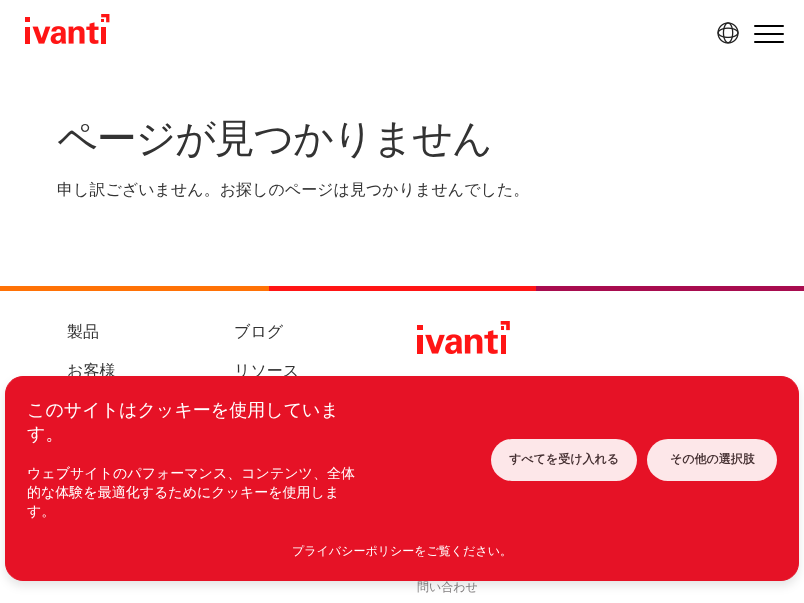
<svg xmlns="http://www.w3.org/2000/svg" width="804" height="603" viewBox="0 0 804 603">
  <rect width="100%" height="100%" fill="rgb(255,255,255)"/>
  <image x="25" y="14" width="85" height="30" href="pic1.png"/>
  <image x="717" y="22" width="22" height="22" href="pic2.png"/>
  <rect x="754" y="33" width="30" height="2" rx="1" fill="rgb(0,0,0)"/>
  <rect x="754" y="25" width="30" height="2" rx="1" fill="rgb(0,0,0)"/>
  <rect x="754" y="41" width="30" height="2" rx="1" fill="rgb(0,0,0)"/>
  <text x="57" y="152" font-family="WenQuanYi Zen Hei" font-size="40" font-weight="500" letter-spacing="-1.25" fill="rgb(51,51,51)">ページが見つかりません</text>
  <text x="57" y="195" font-family="WenQuanYi Zen Hei" font-size="16" font-weight="500" fill="rgb(51,51,51)">申し訳ございません。お探しのページは見つかりませんでした。</text>
  <rect x="536" y="286" width="268" height="5" fill="rgb(168,12,79)"/>
  <rect x="269" y="286" width="267" height="5" fill="rgb(255,21,21)"/>
  <rect x="0" y="286" width="269" height="5" fill="rgb(255,114,6)"/>
  <g font-family="WenQuanYi Zen Hei" font-size="16" font-weight="500" fill="rgb(51,51,51)">
    <text x="67" y="337">製品</text>
    <text x="234" y="337">ブログ</text>
    <text x="67" y="376">お客様</text>
    <text x="234" y="376">リソース</text>
  </g>
  <image x="417" y="321" width="93" height="33" href="pic3.png"/>
  <text x="417" y="591" font-family="WenQuanYi Zen Hei" font-size="12" font-weight="500" fill="rgb(132,129,130)">問い合わせ</text>
  <rect x="5" y="381" width="794" height="205" rx="18" fill="rgba(0,0,0,0.1)" filter="blur(5px)"/>
  <rect x="5.5" y="376.5" width="793" height="204" rx="17.5" fill="rgb(230,18,38)" stroke="rgb(230,18,38)"/>
  <g font-family="WenQuanYi Zen Hei" font-size="18" font-weight="500" fill="rgb(255,255,255)">
    <text>
      <tspan x="27" y="416">このサイトはクッキーを使用していま</tspan>
      <tspan x="27" y="440">す。</tspan>
    </text>
  </g>
  <g font-family="WenQuanYi Zen Hei" font-size="14" font-weight="500" fill="rgb(255,255,255)">
    <text>
      <tspan x="27" y="478">ウェブサイトのパフォーマンス、コンテンツ、全体</tspan>
      <tspan x="27" y="497">的な体験を最適化するためにクッキーを使用しま</tspan>
      <tspan x="27" y="516">す。</tspan>
    </text>
  </g>
  <rect x="491" y="439" width="146" height="42" rx="21" fill="rgb(253,231,233)"/>
  <text x="509" y="463" font-family="WenQuanYi Zen Hei" font-size="12" font-weight="bold" fill="rgb(69,48,50)">すべてを受け入れる</text>
  <rect x="647" y="439" width="130" height="42" rx="21" fill="rgb(253,231,233)"/>
  <text x="670" y="463" font-family="WenQuanYi Zen Hei" font-size="12" font-weight="bold" fill="rgb(69,48,50)">その他の選択肢</text>
  <text x="292" y="555" font-family="WenQuanYi Zen Hei" font-size="12" font-weight="500" fill="rgb(255,255,255)">プライバシーポリシーをご覧ください。</text>
</svg>
